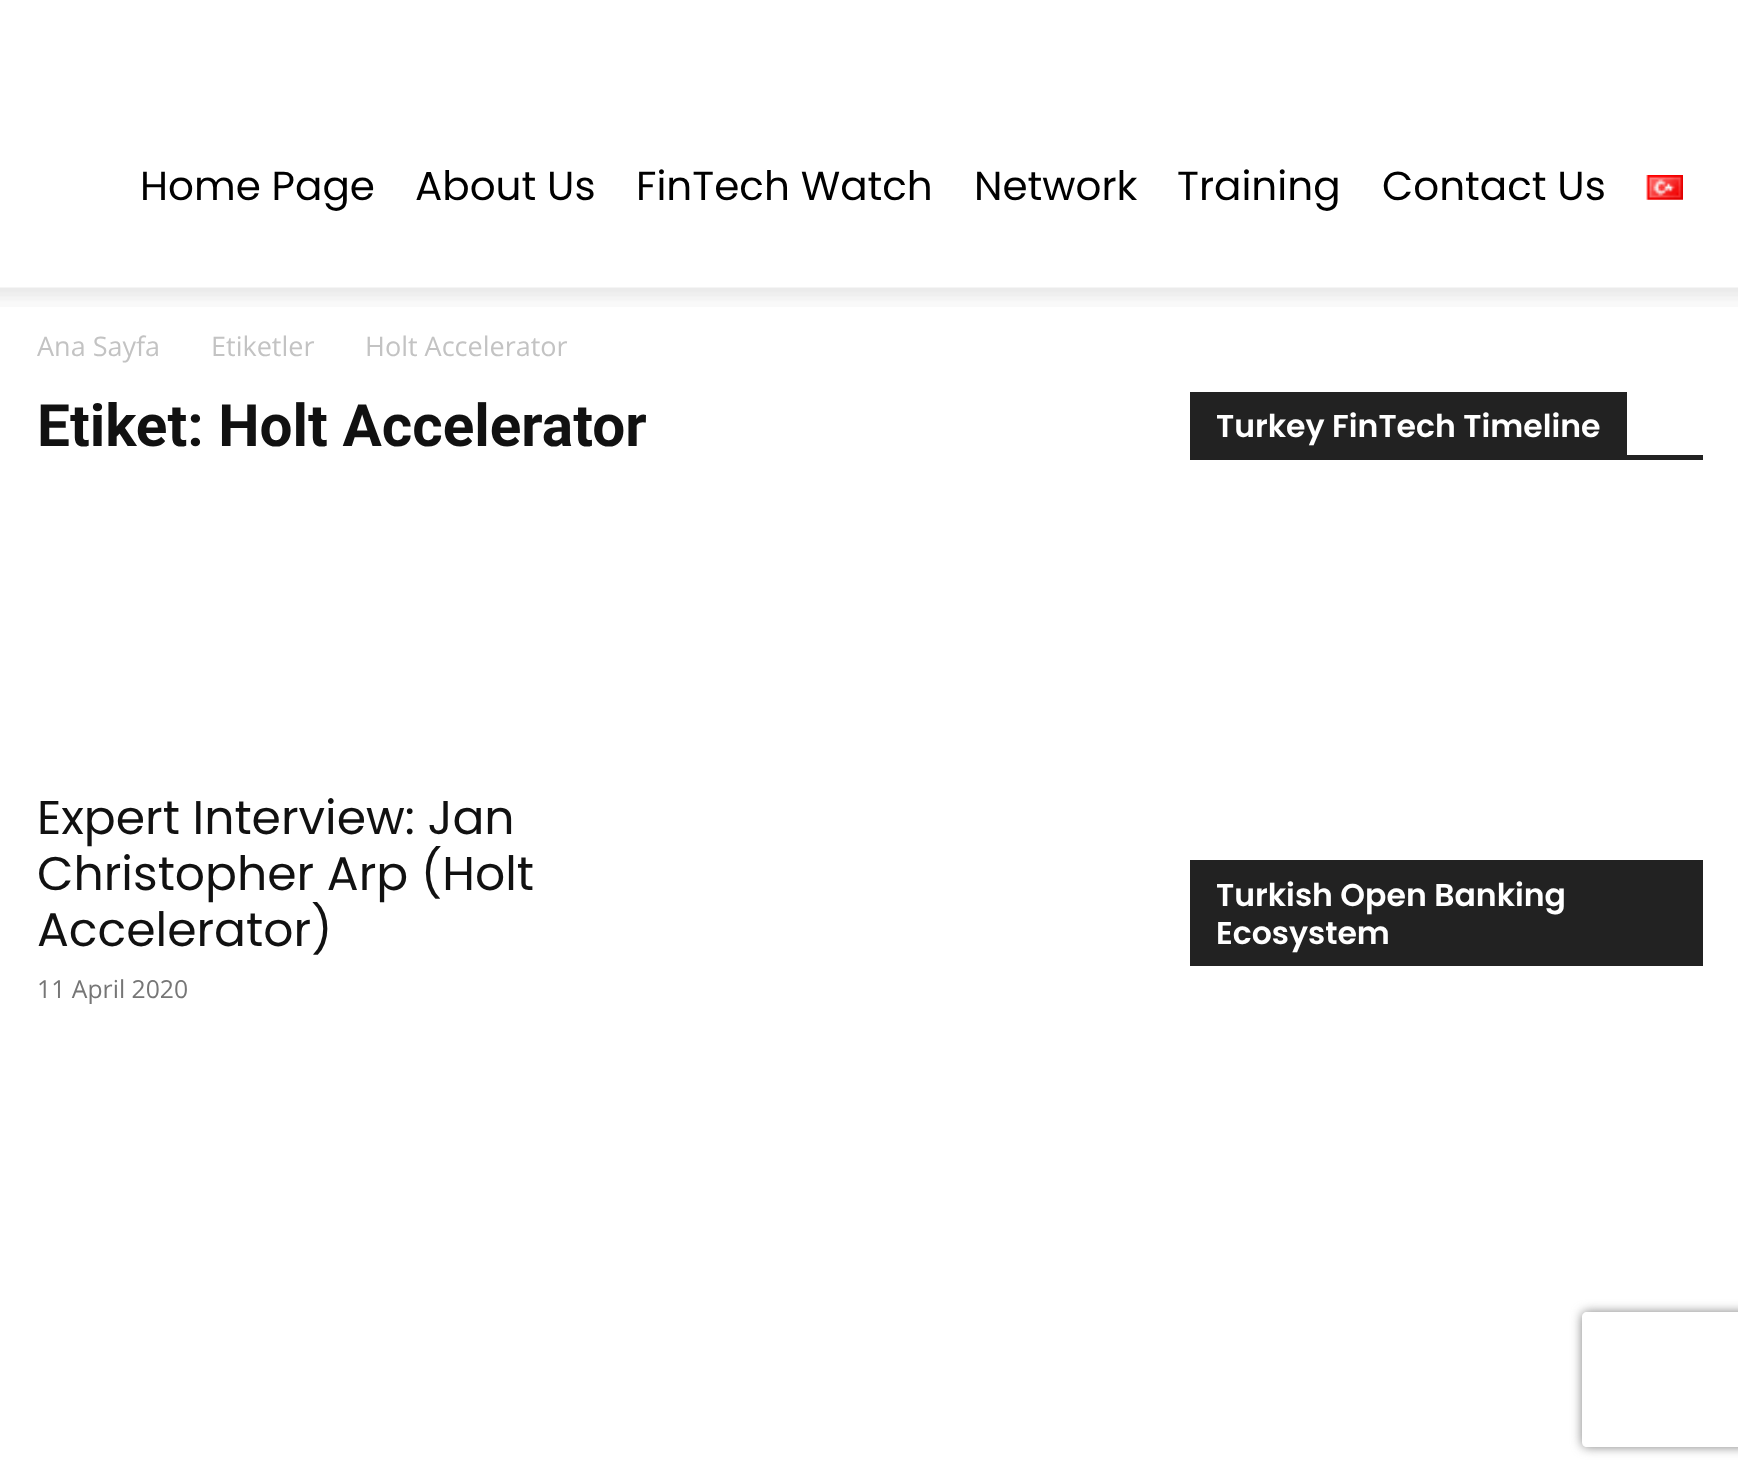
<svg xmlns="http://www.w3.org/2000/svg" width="1738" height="1477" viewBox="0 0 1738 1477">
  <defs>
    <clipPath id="clip1"><path d="M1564 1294H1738V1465H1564ZM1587 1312H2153C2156 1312 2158 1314 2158 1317V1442C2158 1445 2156 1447 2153 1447H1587C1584 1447 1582 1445 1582 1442V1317C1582 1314 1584 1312 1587 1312Z" clip-rule="evenodd"/></clipPath>
  </defs>
  <rect width="100%" height="100%" fill="rgb(255,255,255)"/>
  <g font-family="Poppins" font-size="40.5" fill="rgb(0,0,0)">
    <text x="140" y="200">Home Page</text>
    <text x="415" y="200">About Us</text>
    <text x="636" y="200">FinTech Watch</text>
    <text x="974" y="200">Network</text>
    <text x="1177" y="200">Training</text>
    <text x="1382" y="200">Contact Us</text>
  </g>
  <image x="1646" y="175" width="37" height="25" href="pic1.png"/>
  <image x="0" y="287" width="1738" height="20" href="pic2.png"/>
  <g font-family="Open Sans" font-size="27" fill="rgb(195,195,195)">
    <text x="37" y="356">Ana Sayfa</text>
    <text x="211" y="356">Etiketler</text>
    <text x="365" y="356">Holt Accelerator</text>
  </g>
  <text x="37" y="446" font-family="Roboto" font-size="58.5" font-weight="bold" fill="rgb(17,17,17)">Etiket: Holt Accelerator</text>
  <g font-family="Poppins" font-size="47.25" fill="rgb(17,17,17)">
    <text>
      <tspan x="37" y="834">Expert Interview: Jan</tspan>
      <tspan x="37" y="890">Christopher Arp (Holt</tspan>
      <tspan x="37" y="946">Accelerator)</tspan>
    </text>
  </g>
  <text x="37" y="998" font-family="Open Sans" font-size="24.75" fill="rgb(118,118,118)">11 April 2020</text>
  <rect x="1190" y="455" width="513" height="5" fill="rgb(34,34,34)"/>
  <rect x="1190" y="392" width="437" height="63" fill="rgb(34,34,34)"/>
  <text x="1216" y="437" font-family="Poppins" font-size="31.5" font-weight="600" fill="rgb(255,255,255)">Turkey FinTech Timeline</text>
  <rect x="1190" y="860" width="513" height="106" fill="rgb(34,34,34)"/>
  <g font-family="Poppins" font-size="31.5" font-weight="600" fill="rgb(255,255,255)">
    <text>
      <tspan x="1216" y="906">Turkish Open Banking</tspan>
      <tspan x="1216" y="944">Ecosystem</tspan>
    </text>
  </g>
  <g clip-path="url(#clip1)">
    <rect x="1582" y="1312" width="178" height="135" rx="5" fill="rgb(128,128,128)" filter="blur(5.5px)"/>
  </g>
</svg>
